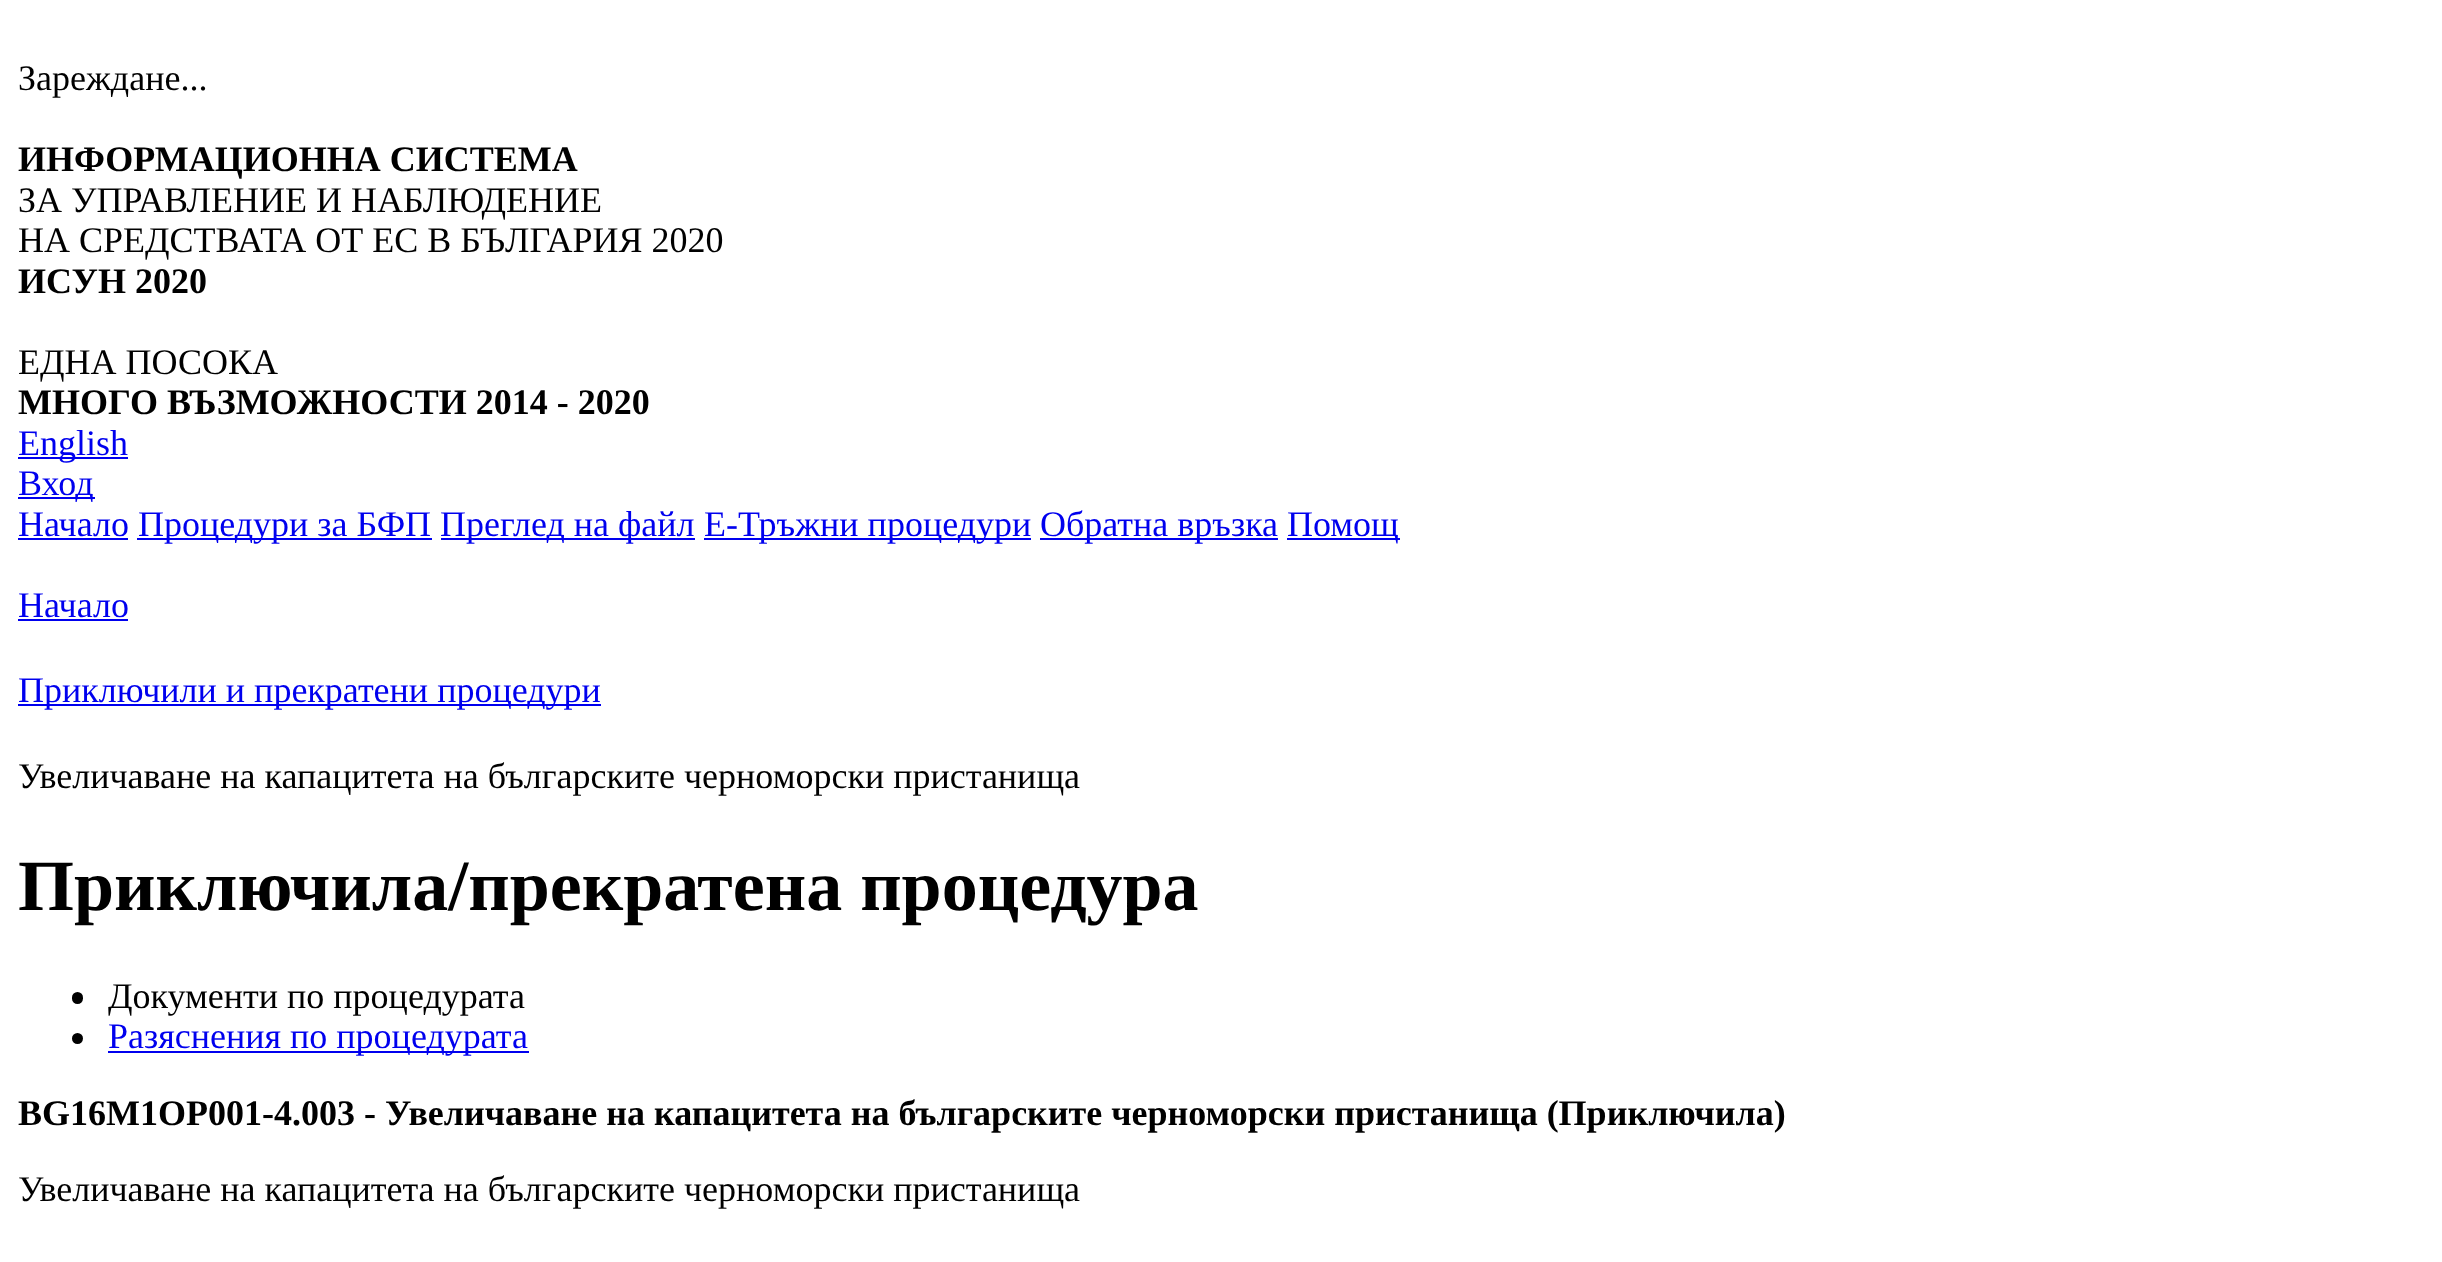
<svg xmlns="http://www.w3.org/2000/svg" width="2442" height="1262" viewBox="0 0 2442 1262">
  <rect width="100%" height="100%" fill="rgb(255,255,255)"/>
  <text x="18" y="90" font-family="Liberation Serif" font-size="36" fill="rgb(0,0,0)">Зареждане...</text>
  <text x="18" y="171" font-family="Liberation Serif" font-size="36" font-weight="bold" fill="rgb(0,0,0)">ИНФОРМАЦИОННА СИСТЕМА</text>
  <g font-family="Liberation Serif" font-size="36" fill="rgb(0,0,0)">
    <text>
      <tspan x="18" y="212">ЗА УПРАВЛЕНИЕ И НАБЛЮДЕНИЕ</tspan>
      <tspan x="18" y="252">НА СРЕДСТВАТА ОТ ЕС В БЪЛГАРИЯ 2020</tspan>
    </text>
  </g>
  <text x="18" y="293" font-family="Liberation Serif" font-size="36" font-weight="bold" fill="rgb(0,0,0)">ИСУН 2020</text>
  <text x="18" y="374" font-family="Liberation Serif" font-size="36" fill="rgb(0,0,0)">ЕДНА ПОСОКА</text>
  <text x="18" y="414" font-family="Liberation Serif" font-size="36" font-weight="bold" fill="rgb(0,0,0)">МНОГО ВЪЗМОЖНОСТИ 2014 - 2020</text>
  <rect x="18" y="457" width="110" height="2" fill="rgb(0,0,238)"/>
  <text x="18" y="455" font-family="Liberation Serif" font-size="36" fill="rgb(0,0,238)">English</text>
  <rect x="18" y="497" width="77" height="2" fill="rgb(0,0,238)"/>
  <g font-family="Liberation Serif" font-size="36" fill="rgb(0,0,238)">
    <text>
      <tspan x="18" y="495">Вход</tspan>
      <tspan x="18" y="536">Начало</tspan>
    </text>
  </g>
  <rect x="18" y="538" width="110" height="2" fill="rgb(0,0,238)"/>
  <rect x="137" y="538" width="295" height="2" fill="rgb(0,0,238)"/>
  <text x="138" y="536" font-family="Liberation Serif" font-size="36" fill="rgb(0,0,238)">Процедури за БФП</text>
  <rect x="441" y="538" width="254" height="2" fill="rgb(0,0,238)"/>
  <text x="440" y="536" font-family="Liberation Serif" font-size="36" fill="rgb(0,0,238)">Преглед на файл</text>
  <rect x="704" y="538" width="327" height="2" fill="rgb(0,0,238)"/>
  <text x="704" y="536" font-family="Liberation Serif" font-size="36" fill="rgb(0,0,238)">Е-Тръжни процедури</text>
  <rect x="1040" y="538" width="238" height="2" fill="rgb(0,0,238)"/>
  <text x="1040" y="536" font-family="Liberation Serif" font-size="36" fill="rgb(0,0,238)">Обратна връзка</text>
  <rect x="1287" y="538" width="113" height="2" fill="rgb(0,0,238)"/>
  <g font-family="Liberation Serif" font-size="36" fill="rgb(0,0,238)">
    <text x="1287" y="536">Помощ</text>
    <text x="18" y="617">Начало</text>
  </g>
  <rect x="18" y="619" width="110" height="2" fill="rgb(0,0,238)"/>
  <rect x="18" y="704" width="583" height="2" fill="rgb(0,0,238)"/>
  <text x="18" y="702" font-family="Liberation Serif" font-size="36" fill="rgb(0,0,238)">Приключили и прекратени процедури</text>
  <text x="18" y="788" font-family="Liberation Serif" font-size="36" fill="rgb(0,0,0)">Увеличаване на капацитета на българските черноморски пристанища</text>
  <text x="18" y="910" font-family="Liberation Serif" font-size="72" font-weight="bold" fill="rgb(0,0,0)">Приключилa/прекратена процедура</text>
  <rect x="72" y="992" width="11" height="12" rx="5.5" fill="rgb(0,0,0)"/>
  <text x="108" y="1008" font-family="Liberation Serif" font-size="36" fill="rgb(0,0,0)">Документи по процедурата</text>
  <circle cx="77.5" cy="1038.5" r="5.5" fill="rgb(0,0,0)"/>
  <rect x="108" y="1051" width="421" height="2" fill="rgb(0,0,238)"/>
  <text x="108" y="1048" font-family="Liberation Serif" font-size="36" fill="rgb(0,0,238)">Разяснения по процедурата</text>
  <text x="18" y="1125" font-family="Liberation Serif" font-size="36" font-weight="bold" fill="rgb(0,0,0)">BG16M1OP001-4.003 - Увеличаване на капацитета на българските черноморски пристанища (Приключила)</text>
  <text x="18" y="1201" font-family="Liberation Serif" font-size="36" fill="rgb(0,0,0)">Увеличаване на капацитета на българските черноморски пристанища</text>
</svg>
